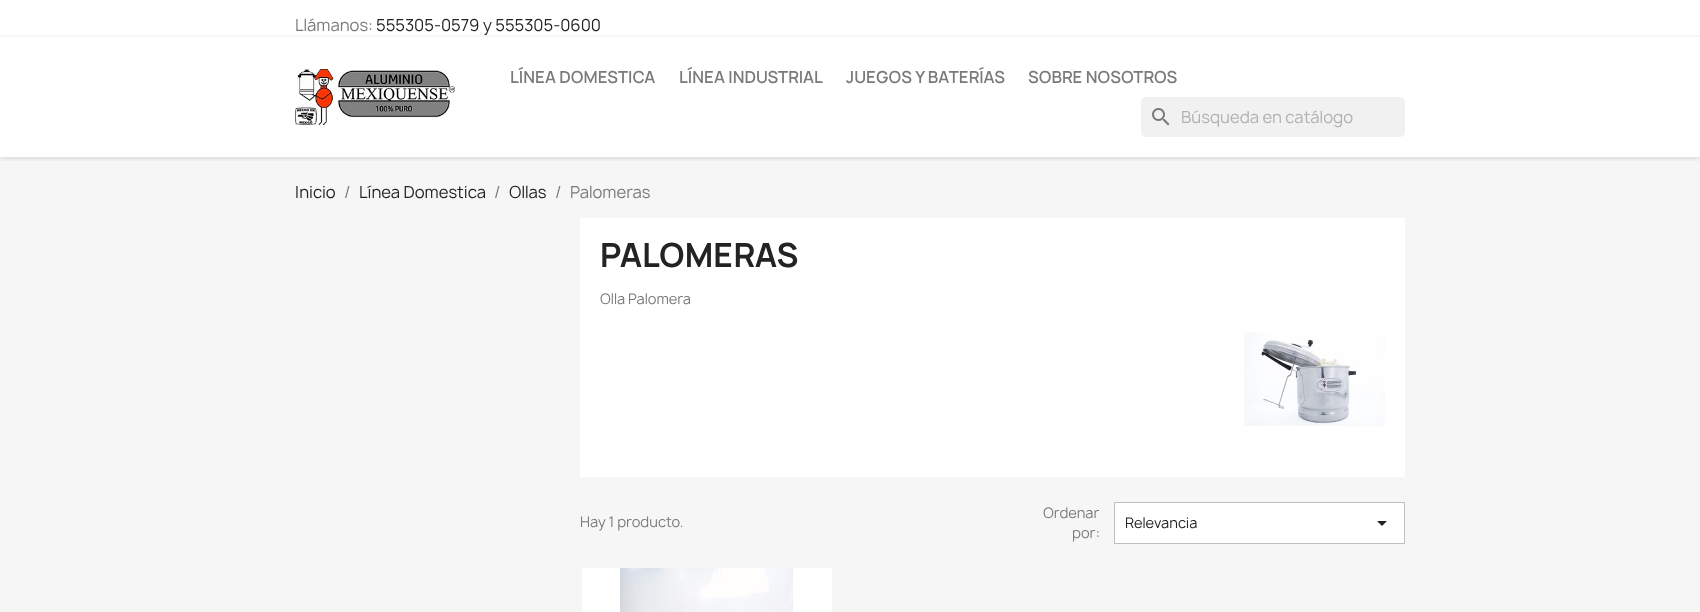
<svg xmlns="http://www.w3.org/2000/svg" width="1700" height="612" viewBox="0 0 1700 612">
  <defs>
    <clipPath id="clip1"><rect x="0" y="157" width="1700" height="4"/></clipPath>
  </defs>
  <rect width="100%" height="100%" fill="rgb(255,255,255)"/>
  <rect x="0" y="157" width="1700" height="455" fill="rgb(246,246,246)"/>
  <g clip-path="url(#clip1)">
    <rect x="0" y="2" width="1700" height="157" fill="rgba(0,0,0,0.11)" filter="blur(2.5px)"/>
  </g>
  <rect x="0" y="35" width="1700" height="2" fill="rgb(246,246,246)"/>
  <text x="295" y="31" font-family="Manrope" font-size="16" fill="rgb(122,122,122)">Llámanos:</text>
  <text x="376" y="31" font-family="Manrope" font-size="16" fill="rgb(35,35,35)">555305-0579 y 555305-0600</text>
  <image x="295" y="69" width="160" height="56" href="pic1.png"/>
  <g font-family="Manrope" font-size="16" font-weight="600" fill="rgb(122,122,122)">
    <text x="510" y="83">LÍNEA DOMESTICA</text>
    <text x="679" y="83">LÍNEA INDUSTRIAL</text>
    <text x="846" y="83">JUEGOS Y BATERÍAS</text>
    <text x="1028" y="83">SOBRE NOSOTROS</text>
  </g>
  <rect x="1141" y="97" width="264" height="40" rx="5" fill="rgb(241,241,241)"/>
  <image x="1152" y="108" width="18" height="18" href="pic2.png"/>
  <text x="1181" y="123" font-family="Manrope" font-size="16" fill="rgb(177,177,177)">Búsqueda en catálogo</text>
  <text x="295" y="198" font-family="Manrope" font-size="16" fill="rgb(35,35,35)">Inicio</text>
  <text x="344" y="198" font-family="Manrope" font-size="16" fill="rgb(122,122,122)">/</text>
  <text x="359" y="198" font-family="Manrope" font-size="16" fill="rgb(35,35,35)">Línea Domestica</text>
  <text x="494" y="198" font-family="Manrope" font-size="16" fill="rgb(122,122,122)">/</text>
  <text x="509" y="198" font-family="Manrope" font-size="16" fill="rgb(35,35,35)">Ollas</text>
  <g font-family="Manrope" font-size="16" fill="rgb(122,122,122)">
    <text x="555" y="198">/</text>
    <text x="570" y="198">Palomeras</text>
  </g>
  <rect x="580" y="218" width="825" height="259" fill="rgb(255,255,255)"/>
  <text x="600" y="267" font-family="Manrope" font-size="32" font-weight="bold" fill="rgb(35,35,35)">PALOMERAS</text>
  <text x="600" y="304" font-family="Manrope" font-size="14" fill="rgb(122,122,122)">Olla Palomera</text>
  <image x="1244" y="332" width="141" height="94" href="pic3.png"/>
  <g font-family="Manrope" font-size="14" fill="rgb(122,122,122)">
    <text x="580" y="527">Hay 1 producto.</text>
    <text x="1043" y="518">Ordenar</text>
    <text x="1072" y="538">por:</text>
  </g>
  <rect x="1114.5" y="502.5" width="290" height="41" fill="rgb(255,255,255)" stroke="rgb(191,191,191)"/>
  <text x="1125" y="528" font-family="Manrope" font-size="14" fill="rgb(35,35,35)">Relevancia</text>
  <path d="M1377 521H1387L1382 526Z" fill="rgb(35,35,35)"/>
  <rect x="582" y="568" width="250" height="44" fill="rgb(255,255,255)"/>
  <image x="620" y="568" width="173" height="44" href="pic4.png"/>
</svg>
